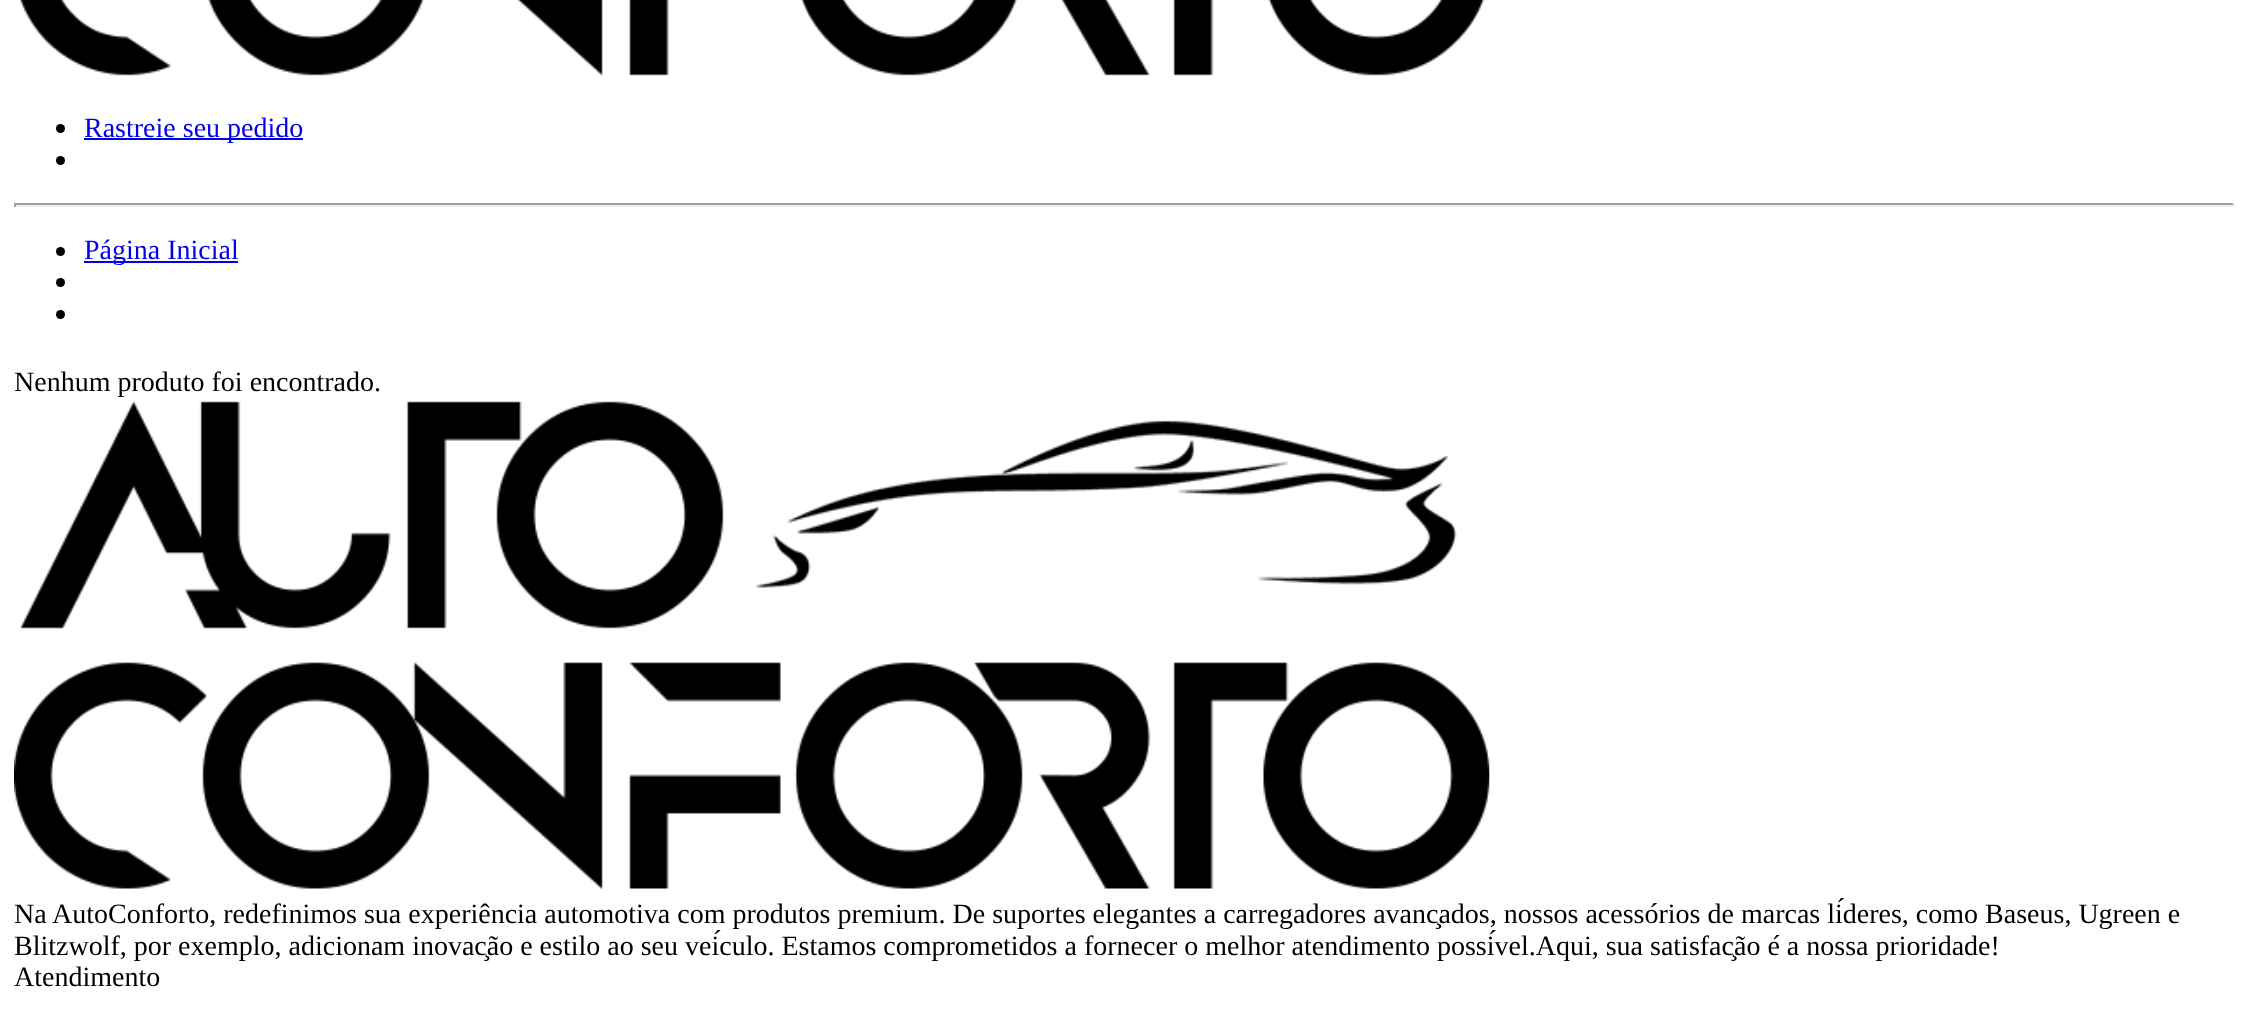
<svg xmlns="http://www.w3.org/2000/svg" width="2248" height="1022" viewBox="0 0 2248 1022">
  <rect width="100%" height="100%" fill="rgb(255,255,255)"/>
  <image x="19" y="0" width="1466" height="76" href="pic1.png"/>
  <circle cx="60.5" cy="128.5" r="4.5" fill="rgb(0,0,0)"/>
  <rect x="84" y="138" width="219" height="2" fill="rgb(0,0,238)"/>
  <text x="84" y="137" font-family="Liberation Serif" font-size="28" fill="rgb(0,0,238)">Rastreie seu pedido</text>
  <circle cx="60.5" cy="160.5" r="4.5" fill="rgb(0,0,0)"/>
  <rect x="14" y="203" width="2221" height="2" fill="rgb(159,159,159)"/>
  <rect x="2233" y="203" width="2" height="4" fill="rgb(238,238,238)"/>
  <rect x="14" y="205" width="2221" height="2" fill="rgb(238,238,238)"/>
  <rect x="14" y="203" width="2" height="4" fill="rgb(159,159,159)"/>
  <circle cx="60.5" cy="251.5" r="4.5" fill="rgb(0,0,0)"/>
  <rect x="84" y="261" width="154" height="2" fill="rgb(0,0,238)"/>
  <text x="84" y="259" font-family="Liberation Serif" font-size="28" fill="rgb(0,0,238)">Página Inicial</text>
  <circle cx="60.5" cy="282.5" r="4.5" fill="rgb(0,0,0)"/>
  <circle cx="60.5" cy="314.5" r="4.5" fill="rgb(0,0,0)"/>
  <text x="14" y="391" font-family="Liberation Serif" font-size="28" fill="rgb(0,0,0)">Nenhum produto foi encontrado.</text>
  <image x="14" y="401" width="1476" height="488" href="pic2.png"/>
  <g font-family="Liberation Serif" font-size="28" fill="rgb(0,0,0)">
    <text>
      <tspan x="14" y="923">Na AutoConforto, redefinimos sua experiência automotiva com produtos premium. De suportes elegantes a carregadores avançados, nossos acessórios de marcas líderes, como Baseus, Ugreen e</tspan>
      <tspan x="14" y="955">Blitzwolf, por exemplo, adicionam inovação e estilo ao seu veículo. Estamos comprometidos a fornecer o melhor atendimento possível.Aqui, sua satisfação é a nossa prioridade!</tspan>
      <tspan x="14" y="986">Atendimento</tspan>
    </text>
  </g>
</svg>
